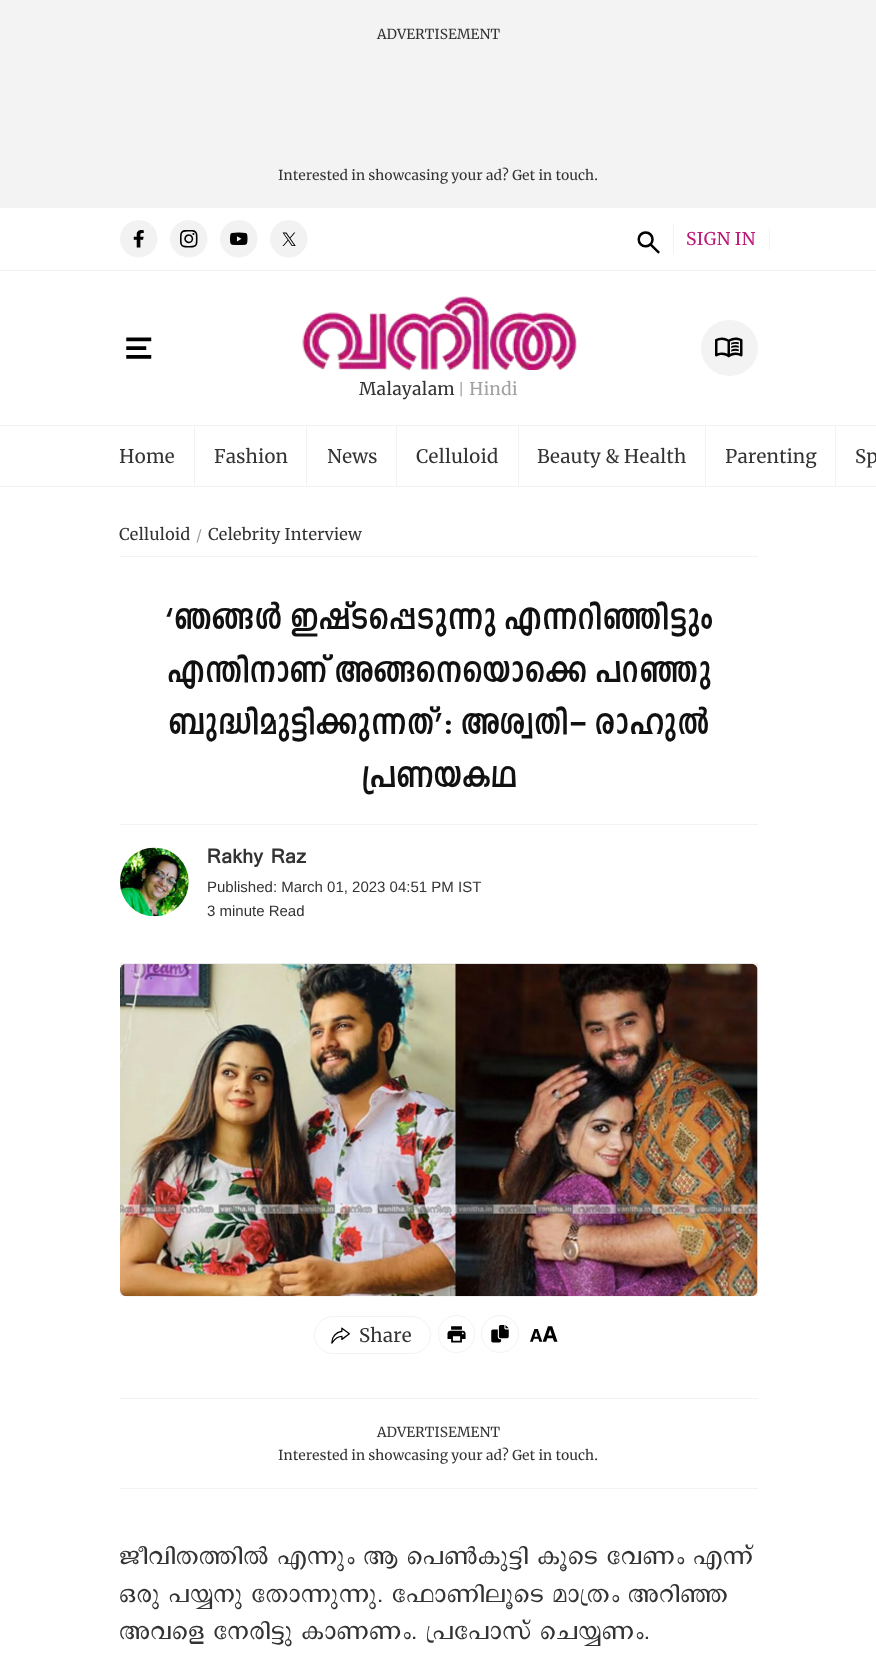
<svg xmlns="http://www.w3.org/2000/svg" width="876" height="1656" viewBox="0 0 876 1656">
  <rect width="100%" height="100%" fill="rgb(255,255,255)"/>
  <rect x="0" y="0" width="876" height="208" fill="rgb(243,243,243)"/>
  <g font-family="Merriweather" font-size="13.75" fill="rgb(51,51,51)">
    <text x="377" y="39">ADVERTISEMENT</text>
    <text x="278" y="180">Interested in showcasing your ad? Get in touch.</text>
  </g>
  <rect x="0" y="270" width="876" height="1" fill="rgb(243,243,243)"/>
  <image x="120" y="220" width="38" height="38" href="pic1.png"/>
  <image x="170" y="220" width="38" height="38" href="pic2.png"/>
  <image x="220" y="220" width="38" height="38" href="pic3.png"/>
  <image x="270" y="220" width="38" height="38" href="pic4.png"/>
  <rect x="673" y="224" width="1" height="30" fill="rgb(243,243,243)"/>
  <image x="637" y="231" width="23" height="23" href="pic5.png"/>
  <rect x="769" y="229" width="1" height="21" fill="rgb(243,243,243)"/>
  <text x="686" y="245" font-family="Merriweather" font-size="17.5" fill="rgb(189,24,119)">SIGN IN</text>
  <image x="126" y="337" width="26" height="22" href="pic6.png"/>
  <rect x="701" y="320" width="57" height="56" rx="28" fill="rgb(243,243,243)"/>
  <image x="715" y="337" width="28" height="21" href="pic7.png"/>
  <image x="302" y="296" width="275" height="74" href="pic8.png"/>
  <text x="359" y="395" font-family="Merriweather" font-size="17.5" fill="rgb(51,51,51)">Malayalam</text>
  <text x="458" y="395" font-family="Merriweather" font-size="15" fill="rgb(162,162,162)">|</text>
  <text x="469" y="395" font-family="Merriweather" font-size="17.5" fill="rgb(162,162,162)">Hindi</text>
  <rect x="0" y="425" width="876" height="1" fill="rgb(243,243,243)"/>
  <rect x="0" y="486" width="876" height="1" fill="rgb(243,243,243)"/>
  <rect x="194" y="426" width="1" height="60" fill="rgb(243,243,243)"/>
  <text x="119" y="463" font-family="Merriweather" font-size="18.75" fill="rgb(51,51,51)">Home</text>
  <rect x="306" y="426" width="1" height="60" fill="rgb(243,243,243)"/>
  <text x="214" y="463" font-family="Merriweather" font-size="18.75" fill="rgb(51,51,51)">Fashion</text>
  <rect x="396" y="426" width="1" height="60" fill="rgb(243,243,243)"/>
  <text x="327" y="463" font-family="Merriweather" font-size="18.75" fill="rgb(51,51,51)">News</text>
  <rect x="518" y="426" width="1" height="60" fill="rgb(243,243,243)"/>
  <text x="416" y="463" font-family="Merriweather" font-size="18.75" fill="rgb(51,51,51)">Celluloid</text>
  <rect x="705" y="426" width="1" height="60" fill="rgb(243,243,243)"/>
  <text x="537" y="463" font-family="Merriweather" font-size="18.75" fill="rgb(51,51,51)">Beauty &amp; Health</text>
  <rect x="835" y="426" width="1" height="60" fill="rgb(243,243,243)"/>
  <g font-family="Merriweather" font-size="18.75" fill="rgb(51,51,51)">
    <text x="725" y="463">Parenting</text>
    <text x="855" y="463">Sp</text>
  </g>
  <rect x="120" y="556" width="638" height="1" fill="rgb(243,243,243)"/>
  <text x="119" y="540" font-family="Merriweather" font-size="16.25" fill="rgb(51,51,51)">Celluloid</text>
  <text x="196" y="540" font-family="Merriweather" font-size="13.75" fill="rgb(153,153,153)">/</text>
  <text x="208" y="540" font-family="Merriweather" font-size="16.25" fill="rgb(51,51,51)">Celebrity Interview</text>
  <g font-family="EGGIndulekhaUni" font-size="43.75" font-weight="bold" fill="rgb(17,17,17)">
    <text x="164" y="629">‘ഞങ്ങൾ ഇഷ്ടപ്പെടുന്നു എന്നറിഞ്ഞിട്ടും</text>
    <text x="166" y="682">എന്തിനാണ് അങ്ങനെയൊക്കെ പറഞ്ഞു</text>
    <text x="167" y="734">ബുദ്ധിമുട്ടിക്കുന്നത്’: അശ്വതി– രാഹുല്‍</text>
    <text x="360" y="787">പ്രണയകഥ</text>
  </g>
  <rect x="120" y="824" width="638" height="1" fill="rgb(243,243,243)"/>
  <rect x="120" y="963" width="638" height="333" fill="rgb(243,243,243)"/>
  <image x="120" y="847" width="69" height="70" href="pic9.png"/>
  <text x="207" y="863" font-family="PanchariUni" font-size="27.5" font-weight="bold" fill="rgb(51,51,51)">Rakhy Raz</text>
  <g font-family="Liberation Sans" font-size="15" fill="rgb(51,51,51)">
    <text>
      <tspan x="207" y="892">Published: March 01, 2023 04:51 PM IST</tspan>
      <tspan x="207" y="916">3 minute Read</tspan>
    </text>
  </g>
  <image x="120" y="963" width="638" height="334" href="pic10.png"/>
  <rect x="314.5" y="1316.5" width="116" height="37" rx="18.5" fill="none" stroke="rgb(243,243,243)"/>
  <image x="331" y="1327" width="19" height="17" href="pic11.png"/>
  <text x="359" y="1342" font-family="Merriweather" font-size="18.75" fill="rgb(51,51,51)">Share</text>
  <rect x="438.5" y="1315.5" width="36" height="37" rx="18" fill="none" stroke="rgb(243,243,243)"/>
  <image x="447" y="1326" width="19" height="17" href="pic12.png"/>
  <circle cx="500" cy="1334" r="18.5" fill="none" stroke="rgb(243,243,243)"/>
  <image x="491" y="1325" width="18" height="18" href="pic13.png"/>
  <image x="530" y="1326" width="28" height="16" href="pic14.png"/>
  <rect x="120" y="1398" width="638" height="1" fill="rgb(243,243,243)"/>
  <rect x="120" y="1488" width="638" height="1" fill="rgb(243,243,243)"/>
  <g font-family="Merriweather" font-size="13.75" fill="rgb(51,51,51)">
    <text x="377" y="1437">ADVERTISEMENT</text>
    <text x="278" y="1460">Interested in showcasing your ad? Get in touch.</text>
  </g>
  <g font-family="PanchariUni" font-size="31.25" fill="rgb(51,51,51)">
    <text>
      <tspan x="119" y="1564">ജീവിതത്തിൽ എന്നും ആ പെൺകുട്ടി കൂടെ വേണം എന്ന്</tspan>
      <tspan x="119" y="1602">ഒരു പയ്യനു തോന്നുന്നു. ഫോണിലൂടെ മാത്രം അറിഞ്ഞ</tspan>
      <tspan x="119" y="1639">അവളെ നേരിട്ടു കാണണം. പ്രപോസ് ചെയ്യണം.</tspan>
    </text>
  </g>
</svg>
